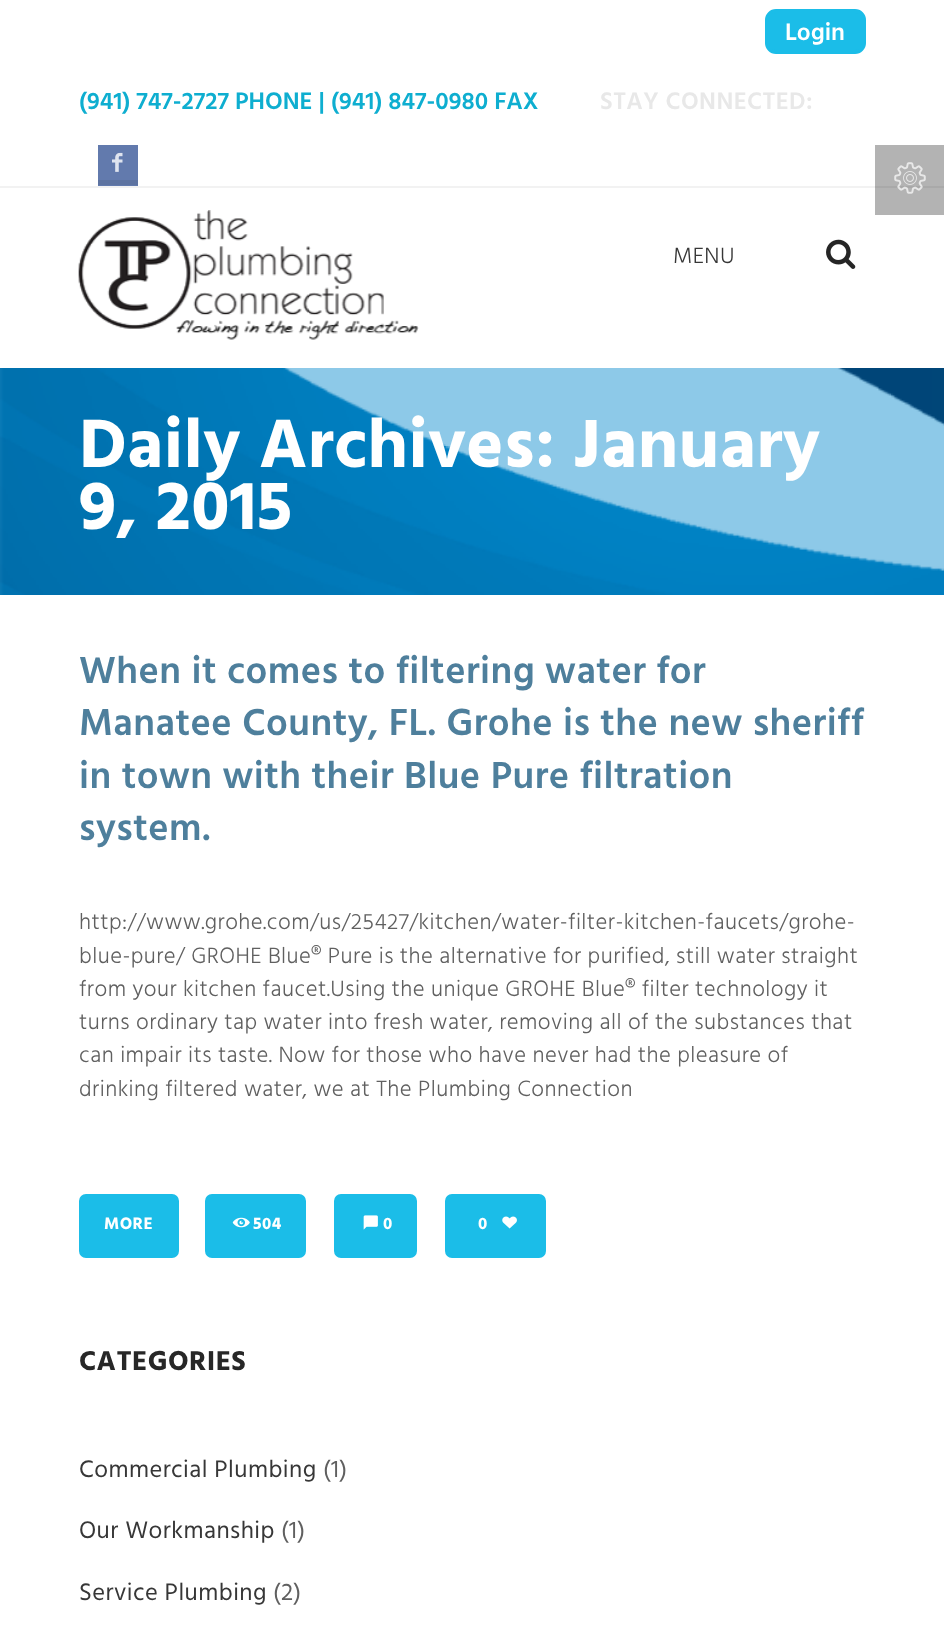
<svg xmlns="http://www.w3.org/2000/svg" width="944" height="1625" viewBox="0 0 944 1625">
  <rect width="100%" height="100%" fill="rgb(255,255,255)"/>
  <rect x="875" y="145" width="69" height="70" fill="rgb(179,179,179)"/>
  <rect x="0" y="186" width="875" height="2" fill="rgb(242,242,242)"/>
  <rect x="875" y="186" width="69" height="2" fill="rgb(169,169,169)"/>
  <rect x="767" y="11" width="97" height="41" rx="9" fill="rgb(27,189,232)" stroke="rgb(27,189,232)" stroke-width="4"/>
  <text x="785" y="40" font-family="Hind" font-size="24.5" font-weight="600" fill="rgb(255,255,255)">Login</text>
  <text x="79" y="109" font-family="Hind" font-size="24.5" font-weight="600" fill="rgb(14,174,208)">(941) 747-2727 PHONE | (941) 847-0980 FAX</text>
  <text x="600" y="109" font-family="Hind" font-size="24.5" font-weight="600" letter-spacing="0.45" fill="rgb(232,232,232)">STAY CONNECTED:</text>
  <rect x="98" y="145" width="40" height="41" fill="rgb(98,122,173)"/>
  <image x="112" y="152" width="11" height="20" href="pic1.png"/>
  <rect x="98" y="180" width="40" height="5" fill="rgb(93,115,161)"/>
  <image x="78" y="210" width="341" height="130" href="pic2.png"/>
  <text x="673" y="263" font-family="Hind" font-size="22.75" font-weight="300" letter-spacing="0.45" fill="rgb(55,55,55)">MENU</text>
  <image x="826" y="239" width="30" height="30" href="pic3.png"/>
  <rect x="0" y="368" width="944" height="227" fill="rgb(141,201,232)"/>
  <image x="0" y="368" width="944" height="227" href="pic4.png"/>
  <g font-family="Hind" font-size="70" font-weight="bold" letter-spacing="0.45" fill="rgb(255,255,255)">
    <text>
      <tspan x="79" y="467">Daily Archives: January</tspan>
      <tspan x="79" y="529">9, 2015</tspan>
    </text>
  </g>
  <g font-family="Hind" font-size="38.5" font-weight="600" letter-spacing="0.45" fill="rgb(78,127,156)">
    <text>
      <tspan x="79" y="683">When it comes to filtering water for</tspan>
      <tspan x="79" y="735">Manatee County, FL. Grohe is the new sheriff</tspan>
      <tspan x="79" y="788">in town with their Blue Pure filtration</tspan>
      <tspan x="79" y="840">system.</tspan>
    </text>
  </g>
  <g font-family="Hind" font-size="22.75" font-weight="300" letter-spacing="0.45" fill="rgb(96,96,96)">
    <text>
      <tspan x="79" y="929">http://www.grohe.com/us/25427/kitchen/water-filter-kitchen-faucets/grohe-</tspan>
      <tspan x="79" y="963">blue-pure/ GROHE Blue® Pure is the alternative for purified, still water straight</tspan>
      <tspan x="79" y="996">from your kitchen faucet.Using the unique GROHE Blue® filter technology it</tspan>
      <tspan x="79" y="1029">turns ordinary tap water into fresh water, removing all of the substances that</tspan>
      <tspan x="79" y="1062">can impair its taste. Now for those who have never had the pleasure of</tspan>
      <tspan x="79" y="1096">drinking filtered water, we at The Plumbing Connection</tspan>
    </text>
  </g>
  <rect x="81" y="1196" width="96" height="60" rx="5" fill="rgb(27,189,232)" stroke="rgb(27,189,232)" stroke-width="4"/>
  <text x="104" y="1229" font-family="Hind" font-size="17" font-weight="bold" letter-spacing="0.45" fill="rgb(255,255,255)">MORE</text>
  <rect x="207" y="1196" width="97" height="60" rx="5" fill="rgb(27,189,232)" stroke="rgb(27,189,232)" stroke-width="4"/>
  <image x="232" y="1217" width="18" height="11" href="pic5.png"/>
  <text x="253" y="1229" font-family="Hind" font-size="17" font-weight="bold" letter-spacing="0.45" fill="rgb(255,255,255)">504</text>
  <rect x="336" y="1196" width="79" height="60" rx="5" fill="rgb(27,189,232)" stroke="rgb(27,189,232)" stroke-width="4"/>
  <image x="363" y="1215" width="15" height="15" href="pic6.png"/>
  <text x="383" y="1229" font-family="Hind" font-size="17" font-weight="bold" letter-spacing="0.45" fill="rgb(255,255,255)">0</text>
  <rect x="447" y="1196" width="97" height="60" rx="5" fill="rgb(27,189,232)" stroke="rgb(27,189,232)" stroke-width="4"/>
  <text x="478" y="1229" font-family="Hind" font-size="17" font-weight="bold" letter-spacing="0.45" fill="rgb(255,255,255)">0</text>
  <image x="502" y="1216" width="15" height="13" href="pic7.png"/>
  <text x="79" y="1370" font-family="Hind" font-size="28" font-weight="bold" letter-spacing="0.45" fill="rgb(39,39,39)">CATEGORIES</text>
  <text x="79" y="1477" font-family="Hind" font-size="24.5" letter-spacing="0.45" fill="rgb(55,55,55)">Commercial Plumbing</text>
  <text x="323" y="1477" font-family="Hind" font-size="24.5" letter-spacing="0.45" fill="rgb(96,96,96)">(1)</text>
  <text x="79" y="1538" font-family="Hind" font-size="24.5" letter-spacing="0.45" fill="rgb(55,55,55)">Our Workmanship</text>
  <text x="281" y="1538" font-family="Hind" font-size="24.5" letter-spacing="0.45" fill="rgb(96,96,96)">(1)</text>
  <text x="79" y="1600" font-family="Hind" font-size="24.5" letter-spacing="0.45" fill="rgb(55,55,55)">Service Plumbing</text>
  <text x="273" y="1600" font-family="Hind" font-size="24.5" letter-spacing="0.45" fill="rgb(96,96,96)">(2)</text>
  <image x="894" y="162" width="32" height="32" href="pic8.png"/>
</svg>
